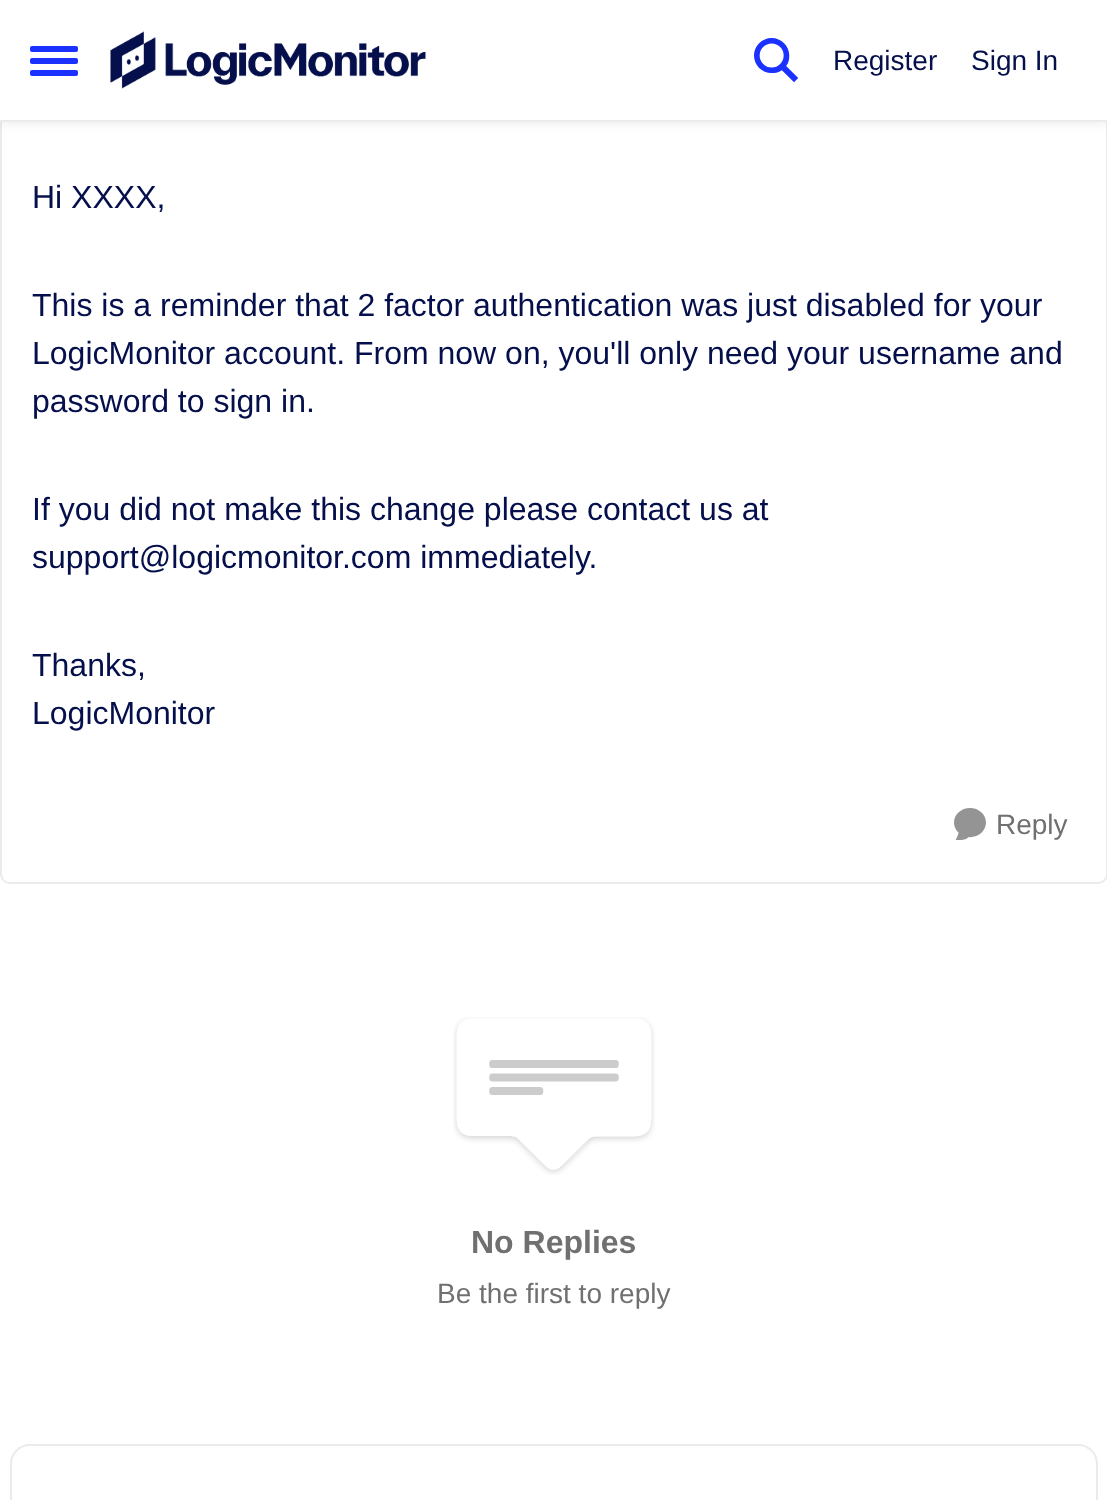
<svg xmlns="http://www.w3.org/2000/svg" width="1107" height="1500" viewBox="0 0 1107 1500">
  <rect width="100%" height="100%" fill="rgb(255,255,255)"/>
  <rect x="1" y="-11" width="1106" height="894" rx="9" fill="none" stroke="rgb(235,235,235)" stroke-width="2"/>
  <rect x="0" y="4" width="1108" height="122" fill="rgba(51,51,51,0.06)" filter="blur(4px)"/>
  <rect x="0" y="0" width="1107" height="120" fill="rgb(255,255,255)"/>
  <rect x="0" y="120" width="1107" height="2" fill="rgb(235,235,235)"/>
  <rect x="30" y="46" width="48" height="6" rx="2" fill="rgb(26,49,255)"/>
  <rect x="30" y="58" width="48" height="6" rx="2" fill="rgb(26,49,255)"/>
  <rect x="30" y="70" width="48" height="6" rx="2" fill="rgb(26,49,255)"/>
  <image x="110" y="31" width="316" height="58" href="pic1.png"/>
  <image x="754" y="38" width="44" height="45" href="pic2.png"/>
  <g font-family="Liberation Sans" font-size="28" fill="rgb(4,15,75)">
    <text x="833" y="70">Register</text>
    <text x="971" y="70">Sign In</text>
  </g>
  <g font-family="Liberation Sans" font-size="32" fill="rgb(4,15,75)">
    <text x="32" y="208">Hi XXXX,</text>
    <text>
      <tspan x="32" y="316">This is a reminder that 2 factor authentication was just disabled for your</tspan>
      <tspan x="32" y="364">LogicMonitor account. From now on, you'll only need your username and</tspan>
      <tspan x="32" y="412">password to sign in.</tspan>
    </text>
    <text>
      <tspan x="32" y="520">If you did not make this change please contact us at</tspan>
      <tspan x="32" y="568">support@logicmonitor.com immediately.</tspan>
    </text>
    <text>
      <tspan x="32" y="676">Thanks,</tspan>
      <tspan x="32" y="724">LogicMonitor</tspan>
    </text>
  </g>
  <image x="954" y="808" width="32" height="32" href="pic3.png"/>
  <text x="996" y="834" font-family="Liberation Sans" font-size="28" fill="rgb(112,112,112)">Reply</text>
  <image x="453" y="1017" width="202" height="158" href="pic4.png"/>
  <text x="471" y="1253" font-family="Liberation Sans" font-size="32" font-weight="bold" fill="rgb(112,112,112)">No Replies</text>
  <text x="437" y="1303" font-family="Liberation Sans" font-size="28" fill="rgb(112,112,112)">Be the first to reply</text>
  <rect x="11" y="1445" width="1086" height="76" rx="19" fill="none" stroke="rgb(235,235,235)" stroke-width="2"/>
</svg>
